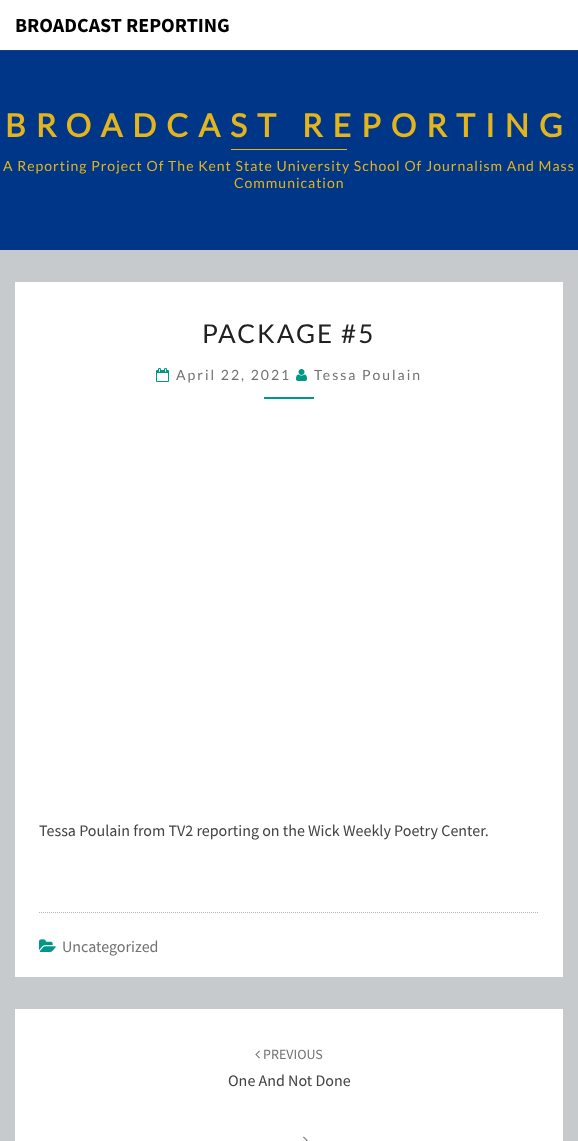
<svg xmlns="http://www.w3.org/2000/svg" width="578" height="1141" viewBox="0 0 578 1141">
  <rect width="100%" height="100%" fill="rgb(199,202,204)"/>
  <rect x="0" y="50" width="578" height="200" fill="rgb(0,54,135)"/>
  <rect x="0" y="1" width="578" height="50" fill="rgba(100,100,100,0.2)" filter="blur(0.5px)"/>
  <rect x="0" y="0" width="578" height="50" fill="rgb(255,255,255)"/>
  <text x="15" y="32" font-family="Source Sans Pro" font-size="20" font-weight="bold" fill="rgb(0,0,0)">BROADCAST REPORTING</text>
  <text x="5" y="137" font-family="Lato" font-size="32" font-weight="bold" letter-spacing="10" fill="rgb(226,180,29)">BROADCAST REPORTING</text>
  <rect x="231" y="149" width="116" height="1" fill="rgb(226,180,29)"/>
  <g font-family="Lato" font-size="14" letter-spacing="1" fill="rgb(226,180,29)">
    <text x="3" y="171">A Reporting Project Of The Kent State University School Of Journalism And Mass</text>
    <text x="234" y="188">Communication</text>
  </g>
  <rect x="15" y="282" width="548" height="695" fill="rgb(255,255,255)"/>
  <text x="202" y="343" font-family="Lato" font-size="26" letter-spacing="2" fill="rgb(33,33,33)">PACKAGE #5</text>
  <image x="156" y="368" width="13" height="14" href="pic1.png"/>
  <text x="176" y="380" font-family="Lato" font-size="14" letter-spacing="2" fill="rgb(114,114,114)">April 22, 2021</text>
  <image x="296" y="369" width="11" height="12" href="pic2.png"/>
  <text x="314" y="380" font-family="Lato" font-size="14" letter-spacing="2" fill="rgb(114,114,114)">Tessa Poulain</text>
  <rect x="264" y="397" width="50" height="2" fill="rgb(0,150,136)"/>
  <text x="39" y="836" font-family="Source Sans Pro" font-size="16" fill="rgb(66,66,66)">Tessa Poulain from TV2 reporting on the Wick Weekly Poetry Center.</text>
  <path d="M39 912.5H539" fill="none" stroke="rgb(182,182,182)" stroke-dasharray="1 1"/>
  <image x="39" y="939" width="17" height="13" href="pic3.png"/>
  <text x="62" y="952" font-family="Source Sans Pro" font-size="16" fill="rgb(114,114,114)">Uncategorized</text>
  <rect x="15" y="1009" width="548" height="132" fill="rgb(255,255,255)"/>
  <image x="255" y="1050" width="5" height="9" href="pic4.png"/>
  <text x="263" y="1059" font-family="Source Sans Pro" font-size="14" fill="rgb(114,114,114)">PREVIOUS</text>
  <text x="228" y="1086" font-family="Source Sans Pro" font-size="16" fill="rgb(66,66,66)">One And Not Done</text>
  <image x="303" y="1136" width="5" height="5" href="pic5.png"/>
</svg>
